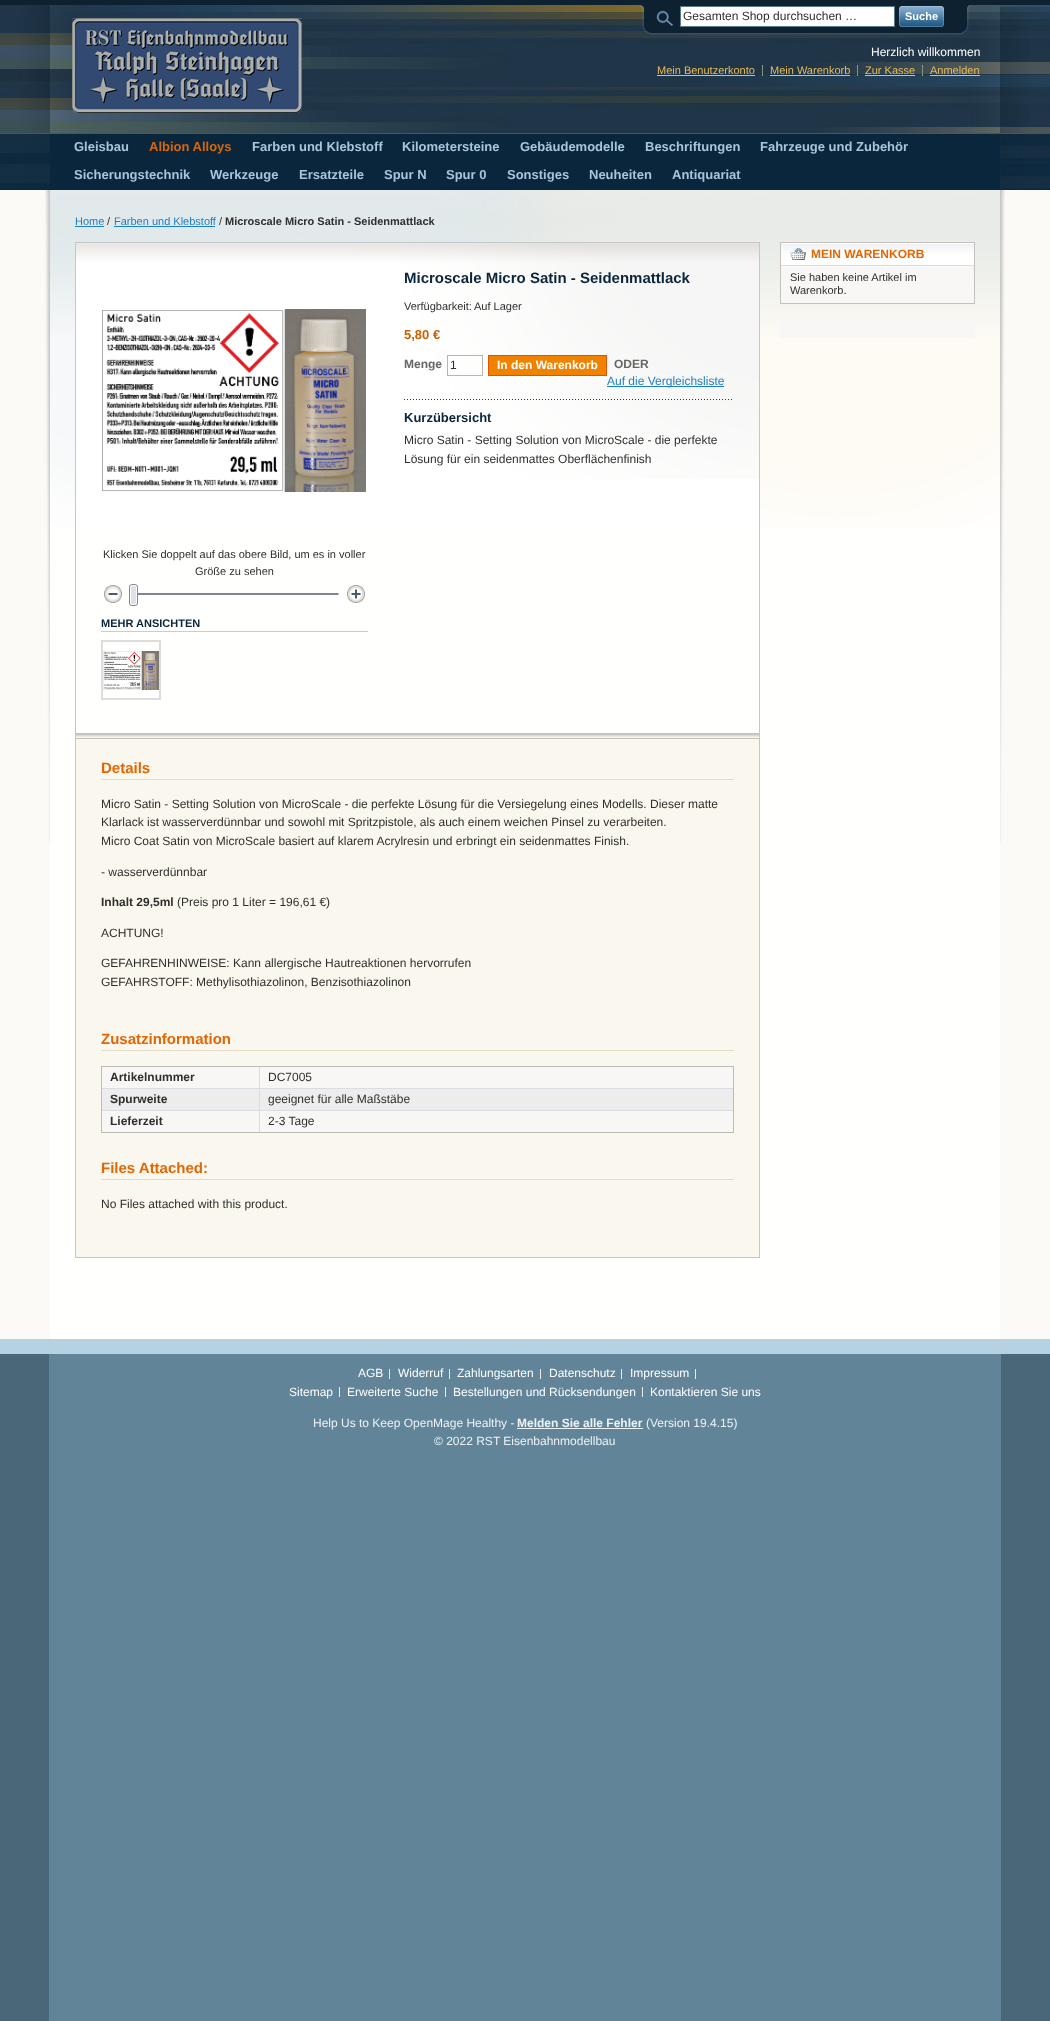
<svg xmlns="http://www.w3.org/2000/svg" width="1050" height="2021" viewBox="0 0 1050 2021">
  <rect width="100%" height="100%" fill="rgb(73,103,120)"/>
  <rect x="49" y="1354" width="952" height="667" fill="rgb(97,132,153)"/>
  <image x="0" y="5" width="1050" height="128" href="pic1.png"/>
  <rect x="0" y="0" width="1050" height="5" fill="rgb(13,33,49)"/>
  <rect x="0" y="133" width="1050" height="1" fill="rgb(65,89,102)"/>
  <image x="72" y="18" width="230" height="95" href="pic2.png"/>
  <image x="640" y="5" width="331" height="30" href="pic3.png"/>
  <rect x="680.5" y="6.5" width="214" height="20" fill="rgb(255,255,255)" stroke="rgb(92,121,137)"/>
  <text x="683" y="20" font-family="Liberation Sans" font-size="12" fill="rgb(47,47,47)">Gesamten Shop durchsuchen …</text>
  <image x="899" y="6" width="3" height="21" href="pic4.png"/>
  <image x="902" y="6" width="42" height="21" href="pic5.png"/>
  <text x="905" y="20" font-family="Liberation Sans" font-size="11" font-weight="bold" fill="rgb(255,255,255)">Suche</text>
  <text x="871" y="56" font-family="Liberation Sans" font-size="12" fill="rgb(255,255,255)">Herzlich willkommen</text>
  <image x="762" y="65" width="1" height="11" href="pic6.png"/>
  <text x="657" y="74" font-family="Liberation Sans" font-size="11" fill="rgb(235,188,88)">Mein Benutzerkonto</text>
  <rect x="657" y="75" width="98" height="1" fill="rgb(235,188,88)"/>
  <image x="857" y="65" width="1" height="11" href="pic6.png"/>
  <text x="770" y="74" font-family="Liberation Sans" font-size="11" fill="rgb(235,188,88)">Mein Warenkorb</text>
  <rect x="770" y="75" width="80" height="1" fill="rgb(235,188,88)"/>
  <image x="922" y="65" width="1" height="11" href="pic6.png"/>
  <text x="865" y="74" font-family="Liberation Sans" font-size="11" fill="rgb(235,188,88)">Zur Kasse</text>
  <rect x="865" y="75" width="50" height="1" fill="rgb(235,188,88)"/>
  <text x="930" y="74" font-family="Liberation Sans" font-size="11" fill="rgb(235,188,88)">Anmelden</text>
  <rect x="930" y="75" width="50" height="1" fill="rgb(235,188,88)"/>
  <image x="0" y="134" width="1050" height="56" href="pic7.png"/>
  <text x="74" y="151" font-family="Liberation Sans" font-size="13" font-weight="bold" fill="rgb(167,198,221)">Gleisbau</text>
  <text x="149" y="151" font-family="Liberation Sans" font-size="13" font-weight="bold" fill="rgb(217,103,8)">Albion Alloys</text>
  <g font-family="Liberation Sans" font-size="13" font-weight="bold" fill="rgb(167,198,221)">
    <text x="252" y="151">Farben und Klebstoff</text>
    <text x="402" y="151">Kilometersteine</text>
    <text x="520" y="151">Gebäudemodelle</text>
    <text x="645" y="151">Beschriftungen</text>
    <text x="760" y="151">Fahrzeuge und Zubehör</text>
    <text x="74" y="179">Sicherungstechnik</text>
    <text x="210" y="179">Werkzeuge</text>
    <text x="299" y="179">Ersatzteile</text>
    <text x="384" y="179">Spur N</text>
    <text x="446" y="179">Spur 0</text>
    <text x="507" y="179">Sonstiges</text>
    <text x="589" y="179">Neuheiten</text>
    <text x="672" y="179">Antiquariat</text>
  </g>
  <rect x="0" y="190" width="1050" height="1149" fill="rgb(251,250,246)"/>
  <image x="45" y="190" width="960" height="653" href="pic8.png"/>
  <rect x="50" y="527" width="950" height="812" fill="rgb(255,255,254)"/>
  <image x="50" y="190" width="950" height="337" href="pic9.png"/>
  <text x="75" y="225" font-family="Liberation Sans" font-size="11" fill="rgb(30,126,200)">Home</text>
  <rect x="75" y="226" width="29" height="1" fill="rgb(30,126,200)"/>
  <text x="107" y="225" font-family="Liberation Sans" font-size="11" fill="rgb(47,47,47)">/</text>
  <text x="114" y="225" font-family="Liberation Sans" font-size="11" fill="rgb(30,126,200)">Farben und Klebstoff</text>
  <rect x="114" y="226" width="101" height="1" fill="rgb(30,126,200)"/>
  <text x="219" y="225" font-family="Liberation Sans" font-size="11" fill="rgb(47,47,47)">/</text>
  <text x="225" y="225" font-family="Liberation Sans" font-size="11" font-weight="bold" fill="rgb(47,47,47)">Microscale Micro Satin - Seidenmattlack</text>
  <rect x="75.5" y="242.5" width="684" height="1015" fill="none" stroke="rgb(196,198,200)"/>
  <rect x="76" y="263" width="683" height="264" fill="rgb(255,255,255)"/>
  <image x="76" y="243" width="683" height="236" href="pic10.png"/>
  <text x="404" y="283" font-family="Liberation Sans" font-size="15" font-weight="bold" fill="rgb(10,38,60)">Microscale Micro Satin - Seidenmattlack</text>
  <g font-family="Liberation Sans" font-size="11" fill="rgb(47,47,47)">
    <text x="404" y="310">Verfügbarkeit:</text>
    <text x="474" y="310">Auf Lager</text>
  </g>
  <text x="404" y="339" font-family="Liberation Sans" font-size="13" font-weight="bold" fill="rgb(199,98,0)">5,80 €</text>
  <text x="404" y="368" font-family="Liberation Sans" font-size="12" font-weight="bold" fill="rgb(102,102,102)">Menge</text>
  <rect x="447.5" y="355.5" width="35" height="20" fill="none" stroke="rgb(182,182,182)"/>
  <text x="450" y="369" font-family="Liberation Sans" font-size="12" fill="rgb(47,47,47)">1</text>
  <rect x="488.5" y="355.5" width="118" height="20" fill="rgb(241,130,0)" stroke="rgb(222,84,0)"/>
  <text x="497" y="369" font-family="Liberation Sans" font-size="12" font-weight="bold" fill="rgb(255,255,255)">In den Warenkorb</text>
  <text x="614" y="368" font-family="Liberation Sans" font-size="12" font-weight="bold" fill="rgb(102,102,102)">ODER</text>
  <rect x="607" y="386" width="117" height="1" fill="rgb(30,126,200)"/>
  <text x="607" y="385" font-family="Liberation Sans" font-size="12" fill="rgb(30,126,200)">Auf die Vergleichsliste</text>
  <image x="404" y="399" width="328" height="1" href="pic11.png"/>
  <text x="404" y="422" font-family="Liberation Sans" font-size="13" font-weight="bold" fill="rgb(10,38,60)">Kurzübersicht</text>
  <g font-family="Liberation Sans" font-size="12" fill="rgb(47,47,47)">
    <text>
      <tspan x="404" y="444">Micro Satin - Setting Solution von MicroScale - die perfekte</tspan>
      <tspan x="404" y="463">Lösung für ein seidenmattes Oberflächenfinish</tspan>
    </text>
  </g>
  <image x="102" y="309" width="264" height="183" href="pic12.png"/>
  <g font-family="Liberation Sans" font-size="11" fill="rgb(47,47,47)">
    <text x="103" y="558">Klicken Sie doppelt auf das obere Bild, um es in voller</text>
    <text x="195" y="575">Größe zu sehen</text>
  </g>
  <image x="138" y="593" width="201" height="2" href="pic13.png"/>
  <image x="104" y="585" width="18" height="18" href="pic14.png"/>
  <image x="129" y="584" width="9" height="22" href="pic15.png"/>
  <image x="347" y="585" width="18" height="18" href="pic16.png"/>
  <rect x="101" y="631" width="267" height="1" fill="rgb(204,204,204)"/>
  <text x="101" y="627" font-family="Liberation Sans" font-size="11" font-weight="bold" fill="rgb(10,38,60)">MEHR ANSICHTEN</text>
  <rect x="102" y="641" width="58" height="58" fill="none" stroke="rgb(221,221,221)" stroke-width="2"/>
  <image x="103" y="650" width="56" height="40" href="pic17.png"/>
  <rect x="76" y="739" width="683" height="518" fill="rgb(250,247,238)"/>
  <image x="76" y="733" width="683" height="6" href="pic18.png"/>
  <rect x="101" y="779" width="633" height="1" fill="rgb(229,220,195)"/>
  <text x="101" y="773" font-family="Liberation Sans" font-size="15" font-weight="bold" fill="rgb(226,103,3)">Details</text>
  <g font-family="Liberation Sans" font-size="12" fill="rgb(47,47,47)">
    <text>
      <tspan x="101" y="808">Micro Satin - Setting Solution von MicroScale - die perfekte Lösung für die Versiegelung eines Modells. Dieser matte</tspan>
      <tspan x="101" y="826">Klarlack ist wasserverdünnbar und sowohl mit Spritzpistole, als auch einem weichen Pinsel zu verarbeiten.</tspan>
      <tspan x="101" y="845">Micro Coat Satin von MicroScale basiert auf klarem Acrylresin und erbringt ein seidenmattes Finish.</tspan>
    </text>
    <text x="101" y="876">- wasserverdünnbar</text>
  </g>
  <text x="101" y="906" font-family="Liberation Sans" font-size="12" font-weight="bold" fill="rgb(47,47,47)">Inhalt 29,5ml</text>
  <g font-family="Liberation Sans" font-size="12" fill="rgb(47,47,47)">
    <text x="177" y="906">(Preis pro 1 Liter = 196,61 €)</text>
    <text x="101" y="937">ACHTUNG!</text>
    <text>
      <tspan x="101" y="967">GEFAHRENHINWEISE: Kann allergische Hautreaktionen hervorrufen</tspan>
      <tspan x="101" y="986">GEFAHRSTOFF: Methylisothiazolinon, Benzisothiazolinon</tspan>
    </text>
  </g>
  <rect x="101" y="1050" width="633" height="1" fill="rgb(229,220,195)"/>
  <text x="101" y="1044" font-family="Liberation Sans" font-size="15" font-weight="bold" fill="rgb(226,103,3)">Zusatzinformation</text>
  <rect x="101.5" y="1066.5" width="632" height="66" fill="none" stroke="rgb(190,188,183)"/>
  <rect x="102" y="1067" width="631" height="21" fill="rgb(248,247,245)"/>
  <rect x="259" y="1067" width="1" height="22" fill="rgb(217,221,227)"/>
  <rect x="102" y="1088" width="631" height="1" fill="rgb(217,221,227)"/>
  <text x="110" y="1081" font-family="Liberation Sans" font-size="12" font-weight="bold" fill="rgb(47,47,47)">Artikelnummer</text>
  <text x="268" y="1081" font-family="Liberation Sans" font-size="12" fill="rgb(47,47,47)">DC7005</text>
  <rect x="102" y="1089" width="631" height="21" fill="rgb(238,237,237)"/>
  <rect x="259" y="1089" width="1" height="22" fill="rgb(217,221,227)"/>
  <rect x="102" y="1110" width="631" height="1" fill="rgb(217,221,227)"/>
  <text x="110" y="1103" font-family="Liberation Sans" font-size="12" font-weight="bold" fill="rgb(47,47,47)">Spurweite</text>
  <text x="268" y="1103" font-family="Liberation Sans" font-size="12" fill="rgb(47,47,47)">geeignet für alle Maßstäbe</text>
  <rect x="102" y="1111" width="631" height="21" fill="rgb(248,247,245)"/>
  <rect x="259" y="1111" width="1" height="21" fill="rgb(217,221,227)"/>
  <text x="110" y="1125" font-family="Liberation Sans" font-size="12" font-weight="bold" fill="rgb(47,47,47)">Lieferzeit</text>
  <text x="268" y="1125" font-family="Liberation Sans" font-size="12" fill="rgb(47,47,47)">2-3 Tage</text>
  <rect x="101" y="1179" width="633" height="1" fill="rgb(229,220,195)"/>
  <text x="101" y="1173" font-family="Liberation Sans" font-size="15" font-weight="bold" fill="rgb(226,103,3)">Files Attached:</text>
  <text x="101" y="1208" font-family="Liberation Sans" font-size="12" fill="rgb(47,47,47)">No Files attached with this product.</text>
  <rect x="780.5" y="242.5" width="194" height="61" fill="none" stroke="rgb(196,193,188)"/>
  <image x="781" y="243" width="193" height="22" href="pic19.png"/>
  <rect x="781" y="265" width="193" height="1" fill="rgb(221,221,221)"/>
  <image x="790" y="247" width="16" height="13" href="pic20.png"/>
  <text x="811" y="258" font-family="Liberation Sans" font-size="12" font-weight="bold" fill="rgb(226,103,3)">MEIN WARENKORB</text>
  <rect x="781" y="266" width="193" height="37" fill="rgb(248,247,245)"/>
  <g font-family="Liberation Sans" font-size="11" fill="rgb(47,47,47)">
    <text>
      <tspan x="790" y="281">Sie haben keine Artikel im</tspan>
      <tspan x="790" y="294">Warenkorb.</tspan>
    </text>
  </g>
  <rect x="780" y="319" width="195" height="19" fill="rgb(248,247,245)"/>
  <rect x="0" y="1339" width="1050" height="15" fill="rgb(182,209,226)"/>
  <text x="358" y="1377" font-family="Liberation Sans" font-size="12" fill="rgb(255,255,255)">AGB</text>
  <rect x="389" y="1369" width="1" height="10" fill="rgb(233,233,233)"/>
  <text x="398" y="1377" font-family="Liberation Sans" font-size="12" fill="rgb(255,255,255)">Widerruf</text>
  <rect x="449" y="1369" width="1" height="10" fill="rgb(233,233,233)"/>
  <text x="457" y="1377" font-family="Liberation Sans" font-size="12" fill="rgb(255,255,255)">Zahlungsarten</text>
  <rect x="540" y="1369" width="1" height="10" fill="rgb(233,233,233)"/>
  <text x="549" y="1377" font-family="Liberation Sans" font-size="12" fill="rgb(255,255,255)">Datenschutz</text>
  <rect x="621" y="1369" width="1" height="10" fill="rgb(233,233,233)"/>
  <text x="630" y="1377" font-family="Liberation Sans" font-size="12" fill="rgb(255,255,255)">Impressum</text>
  <rect x="695" y="1369" width="1" height="10" fill="rgb(233,233,233)"/>
  <text x="289" y="1396" font-family="Liberation Sans" font-size="12" fill="rgb(255,255,255)">Sitemap</text>
  <rect x="339" y="1387" width="1" height="10" fill="rgb(233,233,233)"/>
  <text x="347" y="1396" font-family="Liberation Sans" font-size="12" fill="rgb(255,255,255)">Erweiterte Suche</text>
  <rect x="445" y="1387" width="1" height="10" fill="rgb(233,233,233)"/>
  <text x="453" y="1396" font-family="Liberation Sans" font-size="12" fill="rgb(255,255,255)">Bestellungen und Rücksendungen</text>
  <rect x="642" y="1387" width="1" height="10" fill="rgb(233,233,233)"/>
  <text x="650" y="1396" font-family="Liberation Sans" font-size="12" fill="rgb(255,255,255)">Kontaktieren Sie uns</text>
  <text x="313" y="1427" font-family="Liberation Sans" font-size="12" fill="rgb(236,243,246)">Help Us to Keep OpenMage Healthy -</text>
  <text x="517" y="1427" font-family="Liberation Sans" font-size="12" font-weight="bold" fill="rgb(236,243,246)">Melden Sie alle Fehler</text>
  <rect x="517" y="1428" width="126" height="1" fill="rgb(236,243,246)"/>
  <g font-family="Liberation Sans" font-size="12" fill="rgb(236,243,246)">
    <text x="646" y="1427">(Version 19.4.15)</text>
    <text x="434" y="1445">© 2022 RST Eisenbahnmodellbau</text>
  </g>
</svg>
